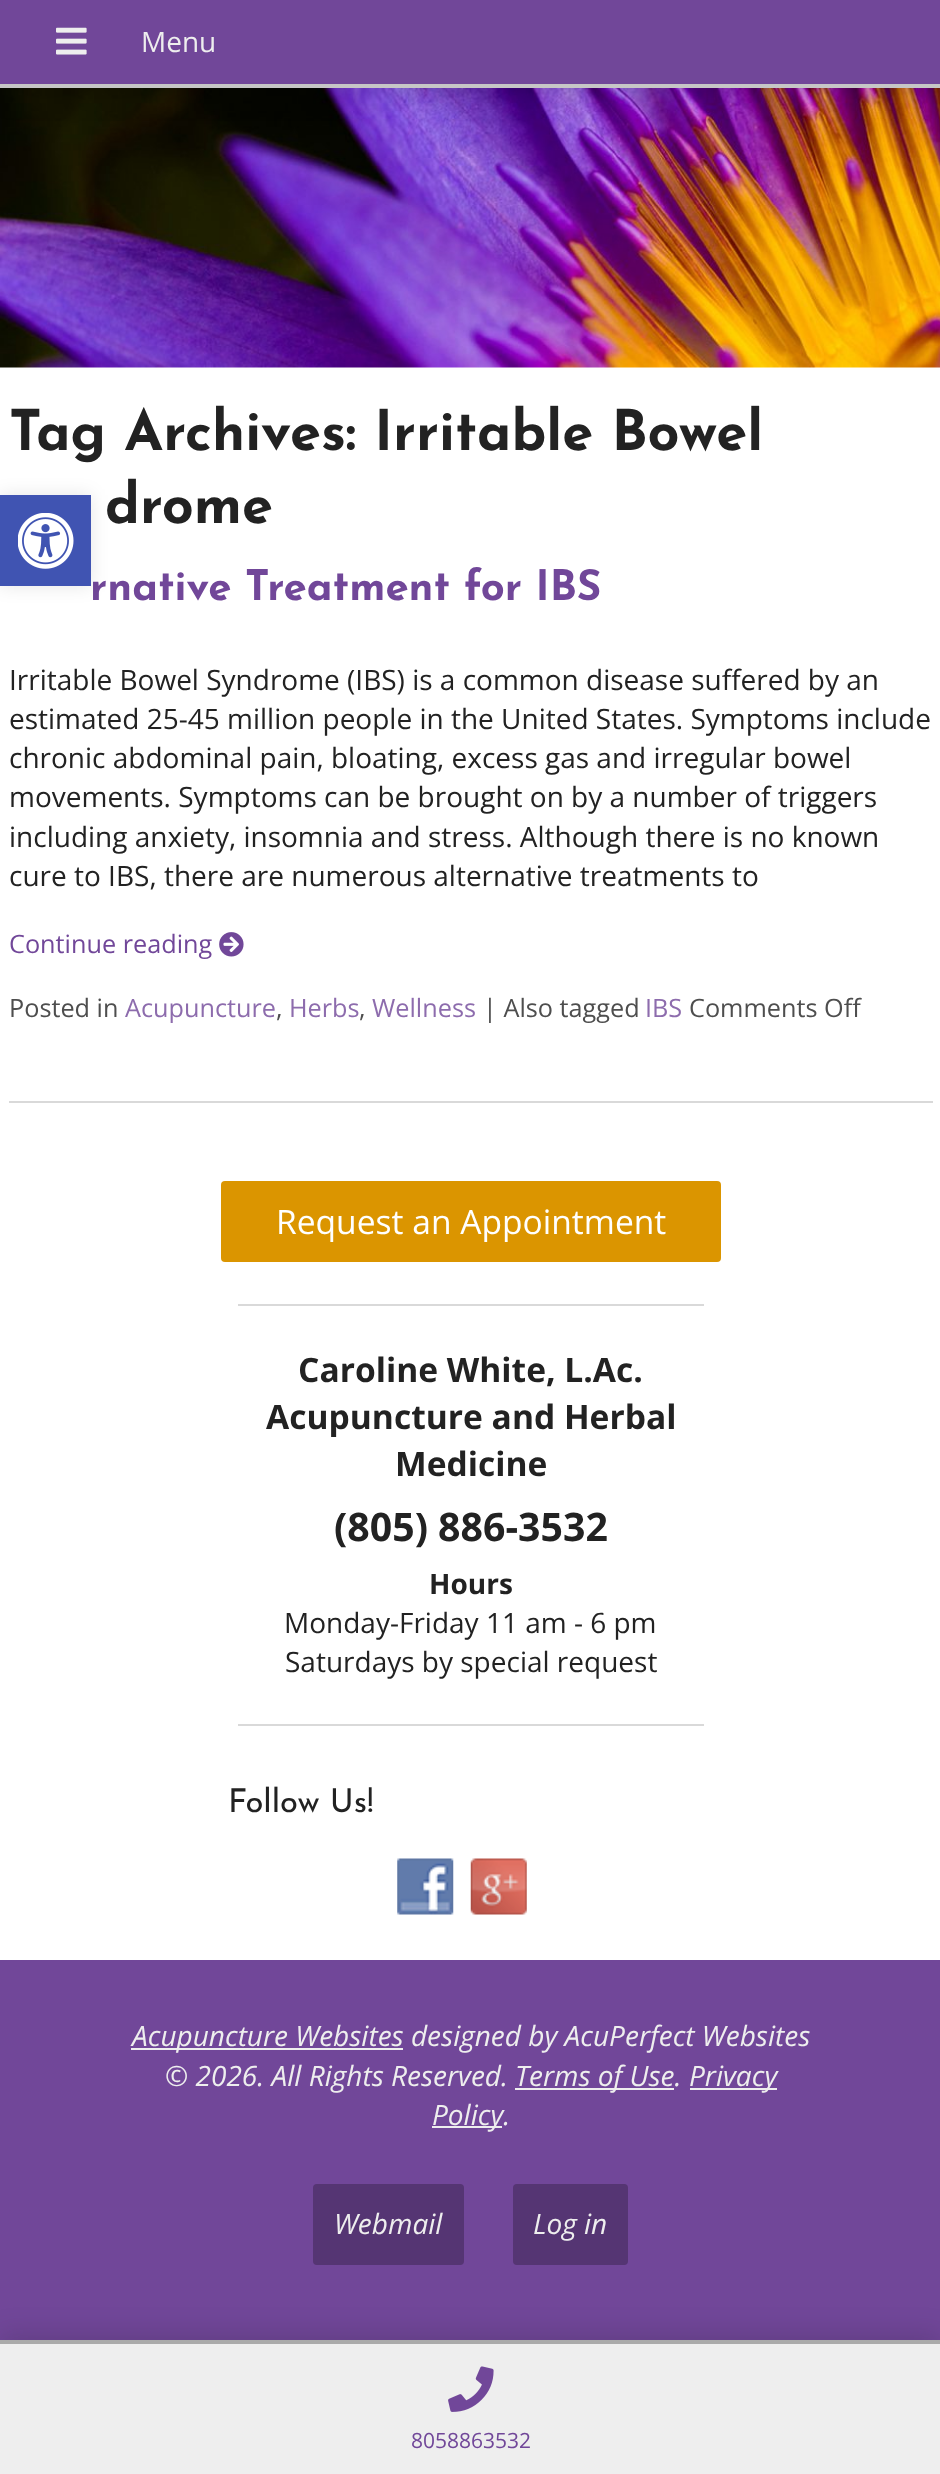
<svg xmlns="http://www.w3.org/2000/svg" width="940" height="2474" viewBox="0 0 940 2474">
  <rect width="100%" height="100%" fill="rgb(255,255,255)"/>
  <image x="0" y="88" width="940" height="280" href="pic2.png"/>
  <rect x="0" y="5" width="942" height="88" fill="rgba(0,0,0,0.15)" filter="blur(14px)"/>
  <rect x="0" y="0" width="940" height="84" fill="rgb(113,71,153)"/>
  <rect x="0" y="84" width="940" height="4" fill="rgb(198,198,198)"/>
  <image x="56" y="27" width="31" height="28" href="pic1.png"/>
  <text x="141" y="52" font-family="Open Sans" font-size="28" fill="rgb(238,238,238)">Menu</text>
  <g font-family="Josefin Sans" font-size="56" font-weight="bold" fill="rgb(34,34,34)">
    <text x="9" y="450">Tag Archives: Irritable Bowel</text>
    <text x="105" y="523">drome</text>
  </g>
  <rect x="9" y="1101" width="924" height="2" fill="rgb(217,217,217)"/>
  <text x="90" y="600" font-family="Josefin Sans" font-size="42" font-weight="bold" fill="rgb(113,71,153)">rnative Treatment for IBS</text>
  <g font-family="Open Sans" font-size="28" fill="rgb(34,34,34)">
    <text>
      <tspan x="9" y="690">Irritable Bowel Syndrome (IBS) is a common disease suffered by an</tspan>
      <tspan x="9" y="729">estimated 25-45 million people in the United States. Symptoms include</tspan>
      <tspan x="9" y="768">chronic abdominal pain, bloating, excess gas and irregular bowel</tspan>
      <tspan x="9" y="807">movements. Symptoms can be brought on by a number of triggers</tspan>
      <tspan x="9" y="847">including anxiety, insomnia and stress. Although there is no known</tspan>
      <tspan x="9" y="886">cure to IBS, there are numerous alternative treatments to</tspan>
    </text>
  </g>
  <text x="9" y="953" font-family="Open Sans" font-size="25.25" fill="rgb(113,71,153)">Continue reading</text>
  <image x="219" y="932" width="25" height="25" href="pic3.png"/>
  <text x="9" y="1017" font-family="Open Sans" font-size="25.25" fill="rgb(78,78,78)">Posted in</text>
  <text x="125" y="1017" font-family="Open Sans" font-size="25.25" fill="rgb(141,108,173)">Acupuncture</text>
  <text x="276" y="1017" font-family="Open Sans" font-size="25.25" fill="rgb(78,78,78)">,</text>
  <text x="289" y="1017" font-family="Open Sans" font-size="25.25" fill="rgb(141,108,173)">Herbs</text>
  <text x="359" y="1017" font-family="Open Sans" font-size="25.25" fill="rgb(78,78,78)">,</text>
  <text x="372" y="1017" font-family="Open Sans" font-size="25.25" fill="rgb(141,108,173)">Wellness</text>
  <text x="483" y="1017" font-family="Open Sans" font-size="25.25" fill="rgb(78,78,78)">| Also tagged</text>
  <text x="645" y="1017" font-family="Open Sans" font-size="25.25" fill="rgb(141,108,173)">IBS</text>
  <text x="689" y="1017" font-family="Open Sans" font-size="25.25" fill="rgb(78,78,78)">Comments Off</text>
  <rect x="221" y="1181" width="500" height="81" rx="4" fill="rgb(219,149,0)"/>
  <text x="276" y="1234" font-family="Open Sans" font-size="33.6" fill="rgb(255,255,255)">Request an Appointment</text>
  <rect x="238" y="1304" width="466" height="2" fill="rgb(217,217,217)"/>
  <g font-family="Open Sans" font-size="33.6" font-weight="bold" fill="rgb(34,34,34)">
    <text x="298" y="1382">Caroline White, L.Ac.</text>
    <text x="266" y="1429">Acupuncture and Herbal</text>
    <text x="395" y="1476">Medicine</text>
  </g>
  <text x="334" y="1541" font-family="Open Sans" font-size="39.25" font-weight="bold" fill="rgb(34,34,34)">(805) 886-3532</text>
  <text x="429" y="1594" font-family="Open Sans" font-size="28" font-weight="bold" fill="rgb(34,34,34)">Hours</text>
  <g font-family="Open Sans" font-size="28" fill="rgb(34,34,34)">
    <text x="284" y="1633">Monday-Friday 11 am - 6 pm</text>
    <text x="285" y="1672">Saturdays by special request</text>
  </g>
  <rect x="238" y="1724" width="466" height="2" fill="rgb(217,217,217)"/>
  <text x="228" y="1812" font-family="Josefin Sans" font-size="32.75" fill="rgb(34,34,34)">Follow Us!</text>
  <image x="397" y="1858" width="57" height="57" href="pic4.png"/>
  <image x="470" y="1858" width="57" height="57" href="pic5.png"/>
  <rect x="0" y="1960" width="940" height="380" fill="rgb(113,71,153)"/>
  <rect x="131" y="2048" width="272" height="2" fill="rgb(238,238,238)"/>
  <g font-family="Open Sans" font-size="28" font-style="italic" fill="rgb(238,238,238)">
    <text x="132" y="2046">Acupuncture Websites designed by AcuPerfect Websites</text>
    <text x="165" y="2086">© 2026. All Rights Reserved.</text>
  </g>
  <rect x="515" y="2088" width="159" height="2" fill="rgb(238,238,238)"/>
  <text x="515" y="2086" font-family="Open Sans" font-size="28" font-style="italic" fill="rgb(238,238,238)">Terms of Use.</text>
  <rect x="690" y="2088" width="87" height="2" fill="rgb(238,238,238)"/>
  <text x="689" y="2086" font-family="Open Sans" font-size="28" font-style="italic" fill="rgb(238,238,238)">Privacy</text>
  <rect x="432" y="2126" width="70" height="2" fill="rgb(238,238,238)"/>
  <text x="432" y="2125" font-family="Open Sans" font-size="28" font-style="italic" fill="rgb(238,238,238)">Policy.</text>
  <rect x="313" y="2184" width="151" height="81" rx="4" fill="rgb(85,53,115)"/>
  <text x="334" y="2234" font-family="Open Sans" font-size="28" font-style="italic" fill="rgb(238,238,238)">Webmail</text>
  <rect x="513" y="2184" width="115" height="81" rx="4" fill="rgb(85,53,115)"/>
  <text x="533" y="2234" font-family="Open Sans" font-size="28" font-style="italic" fill="rgb(238,238,238)">Log in</text>
  <rect x="0" y="495" width="91" height="91" fill="rgba(0,0,0,0.1)" filter="blur(9px)"/>
  <rect x="0" y="495" width="91" height="91" fill="rgb(64,84,178)"/>
  <image x="18" y="513" width="56" height="56" href="pic6.png"/>
  <rect x="0" y="2335" width="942" height="134" fill="rgba(0,0,0,0.15)" filter="blur(14px)"/>
  <rect x="0" y="2344" width="940" height="130" fill="rgb(238,238,238)"/>
  <rect x="0" y="2340" width="940" height="4" fill="rgb(170,170,170)"/>
  <image x="448" y="2366" width="46" height="46" href="pic7.png"/>
  <text x="411" y="2448" font-family="Open Sans" font-size="21" fill="rgb(113,71,153)">8058863532</text>
</svg>
